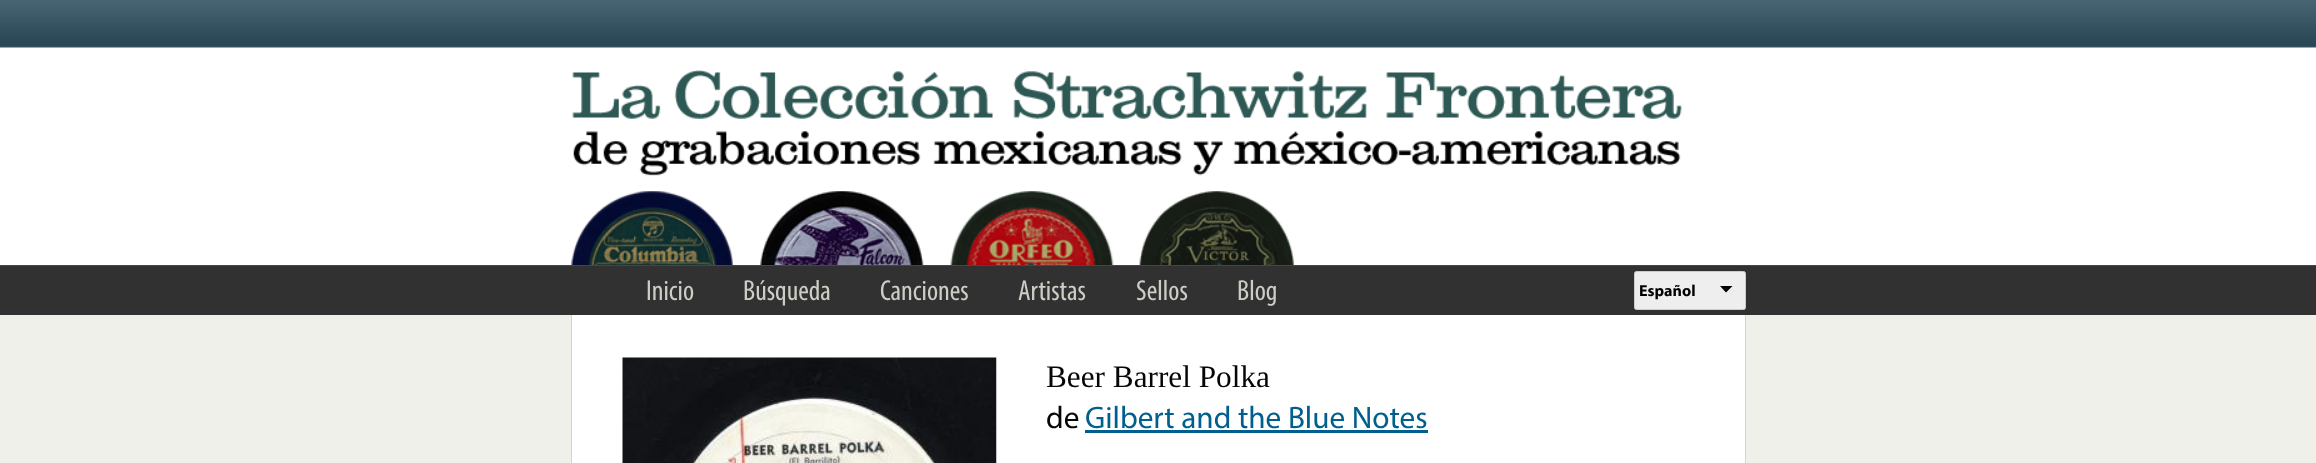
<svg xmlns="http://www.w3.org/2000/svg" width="2316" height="463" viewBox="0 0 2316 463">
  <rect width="100%" height="100%" fill="rgb(255,255,255)"/>
  <image x="0" y="0" width="2316" height="48" href="pic1.png"/>
  <image x="571" y="191" width="723" height="74" href="pic2.png"/>
  <image x="572" y="70" width="1110" height="106" href="pic3.png"/>
  <rect x="0" y="266" width="2316" height="49" fill="rgb(49,49,49)"/>
  <rect x="0" y="265" width="2316" height="1" fill="rgb(69,69,69)"/>
  <g font-family="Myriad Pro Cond" font-size="29" fill="rgb(205,205,197)">
    <text x="646" y="300">Inicio</text>
    <text x="743" y="300">Búsqueda</text>
    <text x="880" y="300">Canciones</text>
    <text x="1018" y="300">Artistas</text>
    <text x="1136" y="300">Sellos</text>
    <text x="1237" y="300">Blog</text>
  </g>
  <rect x="1634.5" y="271.5" width="111" height="38" rx="2" fill="rgb(238,238,238)" stroke="rgb(204,204,204)"/>
  <text x="1639" y="296" font-family="Myriad" font-size="16" font-weight="bold" fill="rgb(0,0,0)">Español</text>
  <path d="M1720 286H1732.5L1726 292.5Z" fill="rgb(0,0,0)"/>
  <rect x="0" y="315" width="2316" height="148" fill="rgb(240,240,234)"/>
  <rect x="572" y="315" width="1173" height="148" fill="rgb(255,255,255)"/>
  <rect x="1745" y="315" width="1" height="148" fill="rgb(212,212,212)"/>
  <rect x="571" y="315" width="1" height="148" fill="rgb(212,212,212)"/>
  <image x="622" y="357" width="375" height="106" href="pic4.png"/>
  <text x="1046" y="387" font-family="Liberation Serif" font-size="31.25" fill="rgb(6,6,6)">Beer Barrel Polka</text>
  <text x="1046" y="428" font-family="Myriad" font-size="31.25" fill="rgb(6,6,6)">de</text>
  <text x="1085" y="428" font-family="Myriad" font-size="31.25" fill="rgb(1,95,141)">Gilbert and the Blue Notes</text>
  <rect x="1085" y="430" width="343" height="3" fill="rgb(1,95,141)"/>
</svg>
